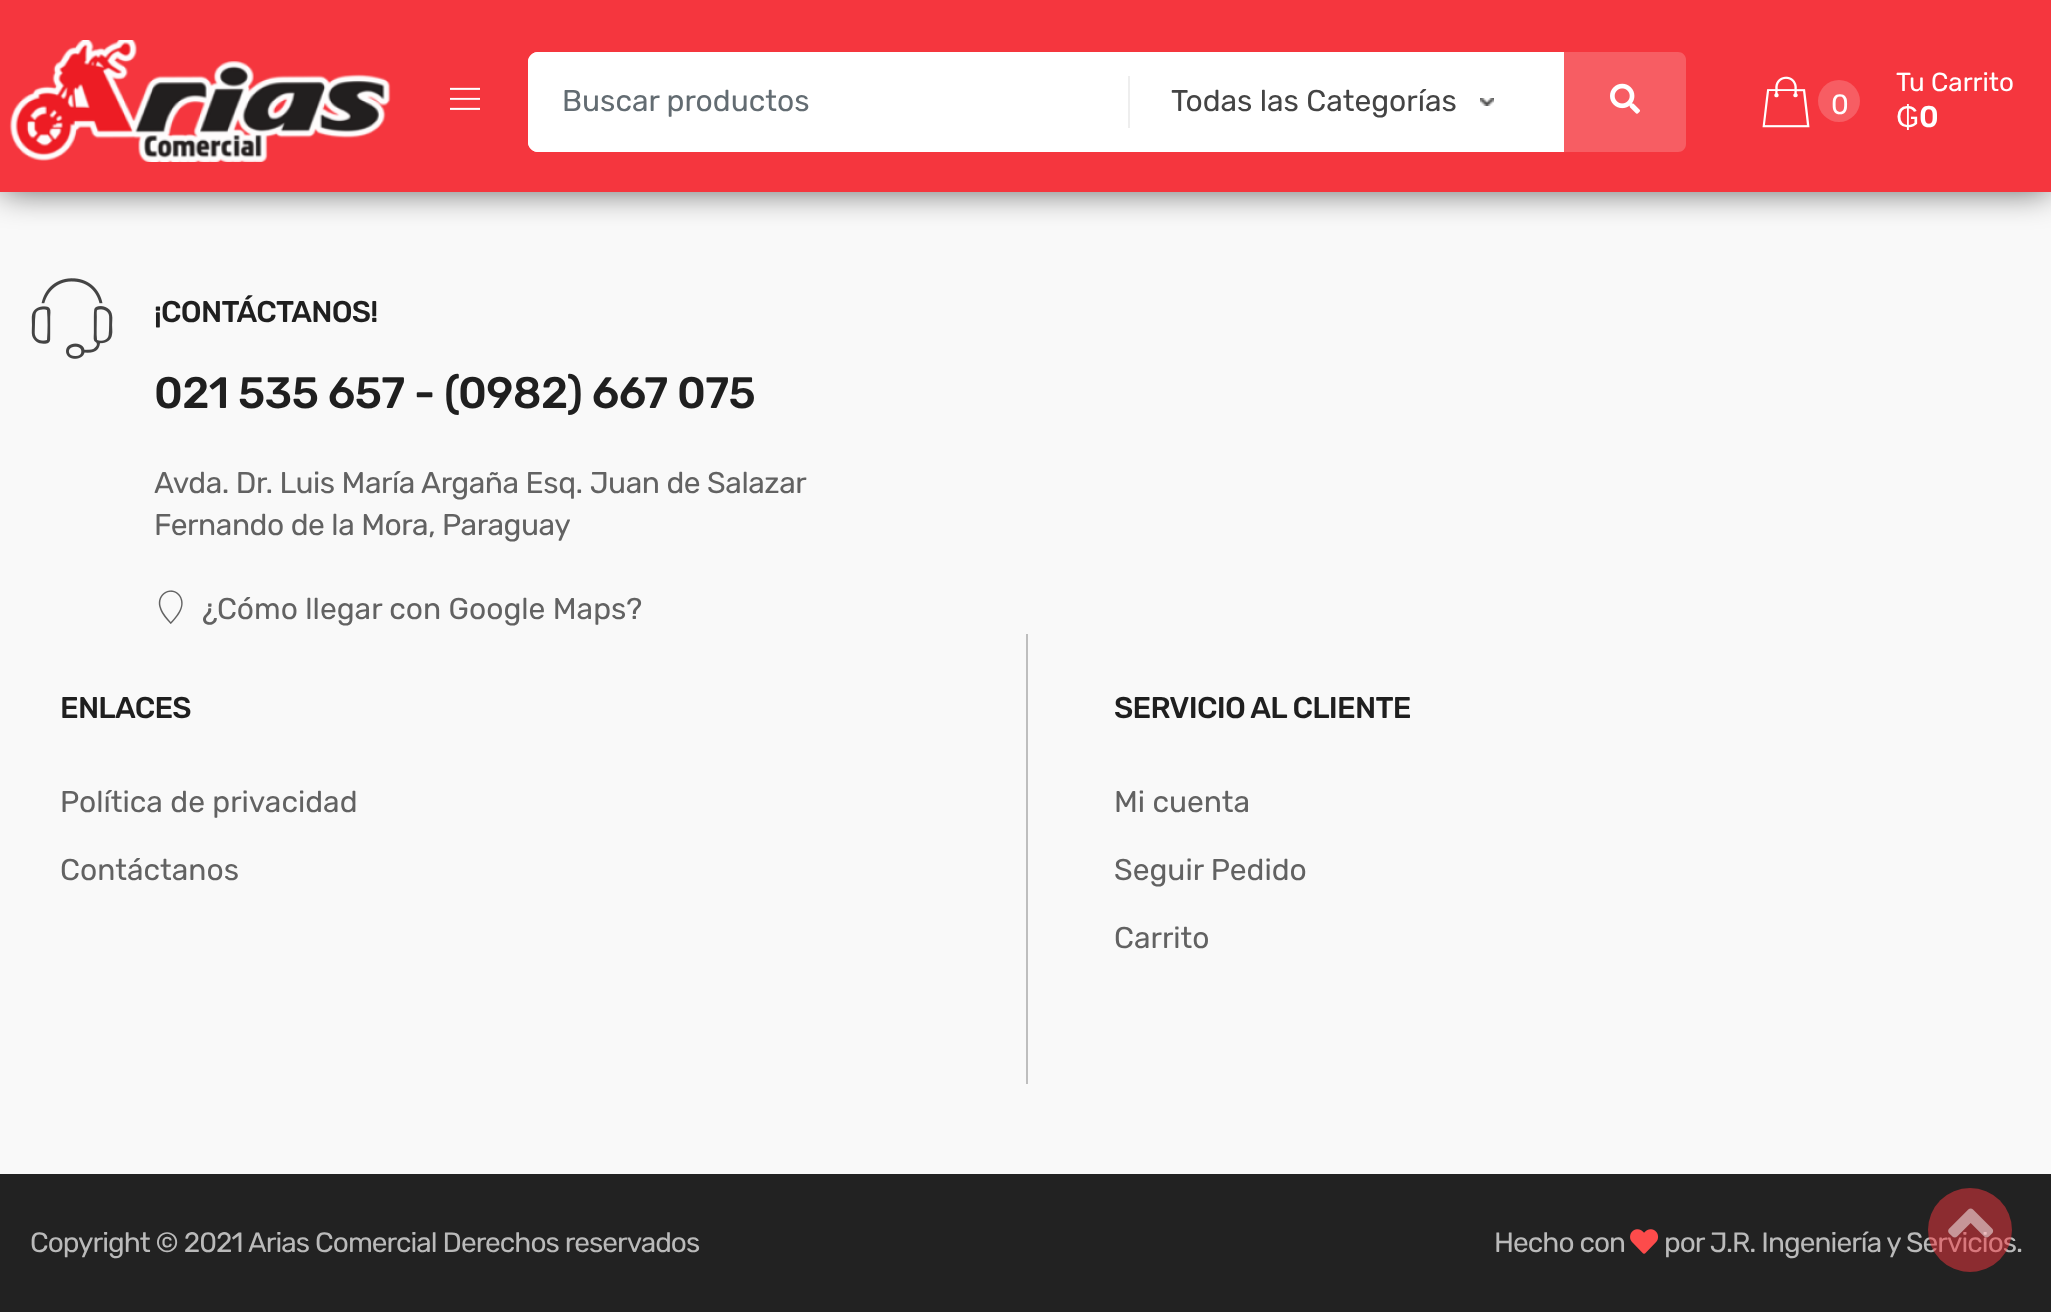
<svg xmlns="http://www.w3.org/2000/svg" width="2051" height="1312" viewBox="0 0 2051 1312">
  <rect width="100%" height="100%" fill="rgb(249,249,249)"/>
  <rect x="2" y="2" width="2048" height="188" fill="rgba(0,0,0,0.66)" filter="blur(17px)"/>
  <rect x="0" y="0" width="2051" height="192" fill="rgb(245,54,62)"/>
  <image x="9" y="40" width="382" height="122" href="pic1.png"/>
  <image x="450" y="87" width="30" height="23" href="pic2.png"/>
  <path d="M538 52H1104V152H538C532.5 152 528 147.5 528 142V62C528 56.5 532.5 52 538 52Z" fill="rgb(255,255,255)"/>
  <path d="M538 52H596V152H538C532.5 152 528 147.5 528 142V62C528 56.5 532.5 52 538 52Z" fill="rgb(255,255,255)"/>
  <text x="562" y="111" font-family="Rubik" font-size="30" fill="rgb(99,108,114)">Buscar productos</text>
  <rect x="1104" y="52" width="460" height="100" fill="rgb(255,255,255)"/>
  <image x="1480" y="98" width="14" height="8" href="pic3.png"/>
  <rect x="1128" y="76" width="2" height="52" fill="rgb(238,238,238)"/>
  <text x="1171" y="111" font-family="Rubik" font-size="30" fill="rgb(68,68,68)">Todas las Categorías</text>
  <path d="M1564 52H1678C1682.5 52 1686 55.5 1686 60V144C1686 148.5 1682.5 152 1678 152H1564Z" fill="rgb(247,93,99)"/>
  <image x="1610" y="83" width="30" height="31" href="pic4.png"/>
  <image x="1762" y="76" width="48" height="52" href="pic5.png"/>
  <circle cx="1839" cy="101" r="21" fill="rgb(247,93,99)"/>
  <text x="1831" y="114" font-family="Rubik" font-size="28" letter-spacing="-2" fill="rgb(255,255,255)">0</text>
  <text x="1896" y="91" font-family="Rubik" font-size="26" fill="rgb(255,255,255)">Tu Carrito</text>
  <text x="1896" y="127" font-family="Liberation Sans" font-size="30" fill="rgb(255,255,255)">₲</text>
  <text x="1919" y="127" font-family="Rubik" font-size="30" font-weight="500" fill="rgb(255,255,255)">0</text>
  <image x="31" y="278" width="82" height="81" href="pic6.png"/>
  <text x="154" y="322" font-family="Rubik" font-size="30" font-weight="500" letter-spacing="-0.75" fill="rgb(31,31,31)">¡CONTÁCTANOS!</text>
  <text x="154" y="408" font-family="Rubik" font-size="44" font-weight="500" letter-spacing="-0.65" fill="rgb(31,31,31)">021 535 657 - (0982) 667 075</text>
  <g font-family="Rubik" font-size="30" letter-spacing="-0.45" fill="rgb(98,98,98)">
    <text>
      <tspan x="154" y="493">Avda. Dr. Luis María Argaña Esq. Juan de Salazar</tspan>
      <tspan x="154" y="535">Fernando de la Mora, Paraguay</tspan>
    </text>
  </g>
  <image x="158" y="590" width="25" height="34" href="pic7.png"/>
  <text x="202" y="619" font-family="Rubik" font-size="30" fill="rgb(98,98,98)">¿Cómo llegar con Google Maps?</text>
  <text x="60" y="718" font-family="Rubik" font-size="30" font-weight="500" letter-spacing="-0.75" fill="rgb(31,31,31)">ENLACES</text>
  <g font-family="Rubik" font-size="30" fill="rgb(98,98,98)">
    <text x="60" y="812">Política de privacidad</text>
    <text x="60" y="880">Contáctanos</text>
  </g>
  <rect x="1026" y="634" width="2" height="450" fill="rgb(190,190,190)"/>
  <text x="1114" y="718" font-family="Rubik" font-size="30" font-weight="500" letter-spacing="-0.75" fill="rgb(31,31,31)">SERVICIO AL CLIENTE</text>
  <g font-family="Rubik" font-size="30" fill="rgb(98,98,98)">
    <text x="1114" y="812">Mi cuenta</text>
    <text x="1114" y="880">Seguir Pedido</text>
    <text x="1114" y="948">Carrito</text>
  </g>
  <rect x="0" y="1174" width="2051" height="138" fill="rgb(34,34,34)"/>
  <g font-family="Rubik" font-size="28" letter-spacing="-0.95" fill="rgb(186,186,186)">
    <text x="30" y="1252">Copyright © 2021</text>
    <text x="248" y="1252">Arias Comercial Derechos reservados</text>
    <text x="1494" y="1252">Hecho con</text>
  </g>
  <image x="1630" y="1229" width="29" height="25" href="pic8.png"/>
  <text x="1664" y="1252" font-family="Rubik" font-size="28" letter-spacing="-0.95" fill="rgb(186,186,186)">por J.R. Ingeniería y Servicios.</text>
  <circle cx="1970" cy="1230" r="42" fill="rgba(245,54,62,0.5)"/>
  <image x="1948" y="1208" width="46" height="30" href="pic9.png"/>
</svg>
